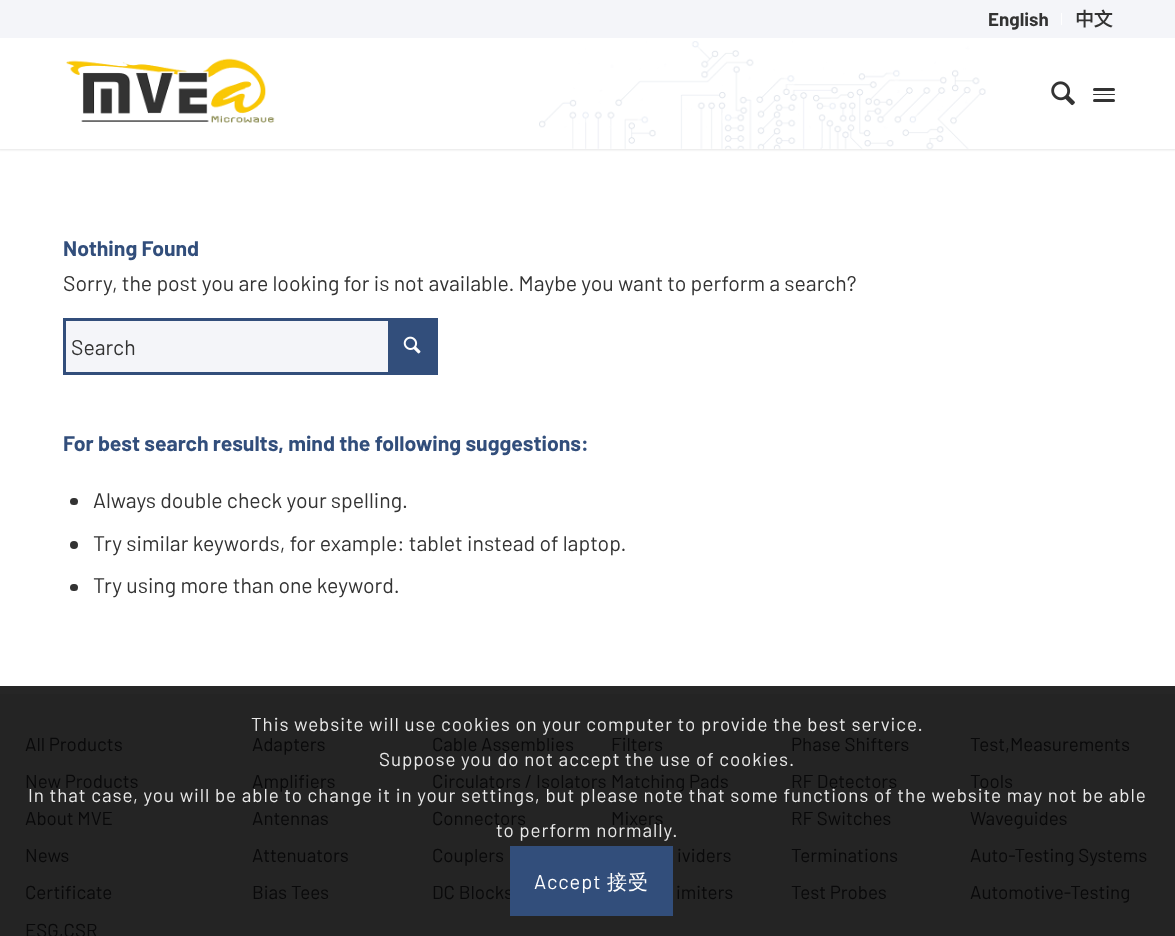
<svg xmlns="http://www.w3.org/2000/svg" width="1175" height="936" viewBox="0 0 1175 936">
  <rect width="100%" height="100%" fill="rgb(255,255,255)"/>
  <rect x="0" y="686" width="1175" height="8" fill="rgb(38,38,38)"/>
  <rect x="-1" y="-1" width="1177" height="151" fill="rgba(0,0,0,0.1)" filter="blur(1px)"/>
  <rect x="0" y="0" width="1175" height="38" fill="rgb(244,245,249)"/>
  <rect x="1061" y="13" width="1" height="12" fill="rgb(255,255,255)"/>
  <text x="988" y="26" font-family="Barlow" font-size="18.75" font-weight="bold" fill="rgb(51,51,51)">English</text>
  <text x="1075" y="26" font-family="Noto Sans CJK TC" font-size="18.75" font-weight="bold" fill="rgb(51,51,51)">中文</text>
  <rect x="0" y="38" width="1175" height="111" fill="rgb(255,255,255)"/>
  <image x="539" y="41" width="447" height="108" href="pic1.png"/>
  <image x="66" y="58" width="209" height="65" href="pic2.png"/>
  <image x="1051" y="81" width="24" height="25" href="pic3.png"/>
  <rect x="1093" y="94" width="22" height="1" rx="0.5" fill="rgb(51,51,51)"/>
  <rect x="1093" y="88" width="22" height="3" rx="1.5" fill="rgb(51,51,51)"/>
  <rect x="1093" y="99" width="22" height="3" rx="1.5" fill="rgb(51,51,51)"/>
  <text x="63" y="256" font-family="Barlow" font-size="21.25" font-weight="bold" fill="rgb(50,78,123)">Nothing Found</text>
  <text x="63" y="291" font-family="Barlow" font-size="21.25" fill="rgb(51,51,51)">Sorry, the post you are looking for is not available. Maybe you want to perform a search?</text>
  <rect x="66" y="321" width="322" height="51" fill="rgb(244,245,249)"/>
  <rect x="64.5" y="319.5" width="372" height="54" fill="none" stroke="rgb(50,78,123)" stroke-width="3"/>
  <text x="71" y="355" font-family="Barlow" font-size="21.25" fill="rgb(51,51,51)">Search</text>
  <rect x="388" y="321" width="47" height="51" fill="rgb(50,78,123)"/>
  <image x="403" y="336" width="18" height="18" href="pic4.png"/>
  <text x="63" y="451" font-family="Barlow" font-size="21.25" font-weight="bold" fill="rgb(50,78,123)">For best search results, mind the following suggestions:</text>
  <rect x="70" y="498" width="8" height="7" rx="3.5" fill="rgb(51,51,51)"/>
  <text x="93" y="508" font-family="Barlow" font-size="21.25" fill="rgb(51,51,51)">Always double check your spelling.</text>
  <circle cx="74" cy="545" r="4" fill="rgb(51,51,51)"/>
  <text x="93" y="551" font-family="Barlow" font-size="21.25" fill="rgb(51,51,51)">Try similar keywords, for example: tablet instead of laptop.</text>
  <rect x="70" y="584" width="8" height="7" rx="3.5" fill="rgb(51,51,51)"/>
  <text x="93" y="593" font-family="Barlow" font-size="21.25" fill="rgb(51,51,51)">Try using more than one keyword.</text>
  <rect x="0" y="694" width="1175" height="242" fill="rgb(36,36,36)"/>
  <g font-family="Barlow" font-size="18.75" fill="rgb(9,9,10)">
    <text>
      <tspan x="25" y="751">All Products</tspan>
      <tspan x="25" y="788">New Products</tspan>
      <tspan x="25" y="825">About MVE</tspan>
      <tspan x="25" y="862">News</tspan>
      <tspan x="25" y="899">Certificate</tspan>
    </text>
    <text x="25" y="937">ESG,CSR</text>
    <text>
      <tspan x="252" y="751">Adapters</tspan>
      <tspan x="252" y="788">Amplifiers</tspan>
      <tspan x="252" y="825">Antennas</tspan>
      <tspan x="252" y="862">Attenuators</tspan>
      <tspan x="252" y="899">Bias Tees</tspan>
    </text>
    <text>
      <tspan x="432" y="751">Cable Assemblies</tspan>
      <tspan x="432" y="788">Circulators / Isolators</tspan>
      <tspan x="432" y="825">Connectors</tspan>
      <tspan x="432" y="862">Couplers</tspan>
      <tspan x="432" y="899">DC Blocks</tspan>
    </text>
    <text>
      <tspan x="611" y="751">Filters</tspan>
      <tspan x="611" y="788">Matching Pads</tspan>
      <tspan x="611" y="825">Mixers</tspan>
    </text>
    <text x="677" y="862">ividers</text>
    <text x="676" y="899">imiters</text>
    <text>
      <tspan x="791" y="751">Phase Shifters</tspan>
      <tspan x="791" y="788">RF Detectors</tspan>
      <tspan x="791" y="825">RF Switches</tspan>
      <tspan x="791" y="862">Terminations</tspan>
      <tspan x="791" y="899">Test Probes</tspan>
    </text>
    <text>
      <tspan x="970" y="751">Test,Measurements</tspan>
      <tspan x="970" y="788">Tools</tspan>
      <tspan x="970" y="825">Waveguides</tspan>
      <tspan x="970" y="862">Auto-Testing Systems</tspan>
      <tspan x="970" y="899">Automotive-Testing</tspan>
    </text>
  </g>
  <g font-family="Barlow" font-size="18.75" letter-spacing="0.94" fill="rgb(233,233,233)">
    <text x="251" y="731">This website will use cookies on your computer to provide the best service.</text>
    <text x="379" y="766">Suppose you do not accept the use of cookies.</text>
    <text x="28" y="802">In that case, you will be able to change it in your settings, but please note that some functions of the website may not be able</text>
    <text x="496" y="837">to perform normally.</text>
  </g>
  <rect x="510" y="846" width="163" height="70" fill="rgb(50,78,123)"/>
  <text x="534" y="889" font-family="Barlow" font-size="20" letter-spacing="1" fill="rgb(255,255,255)">Accept</text>
  <text x="607" y="889" font-family="WenQuanYi Zen Hei" font-size="20" font-weight="500" letter-spacing="1" fill="rgb(255,255,255)">接受</text>
</svg>
